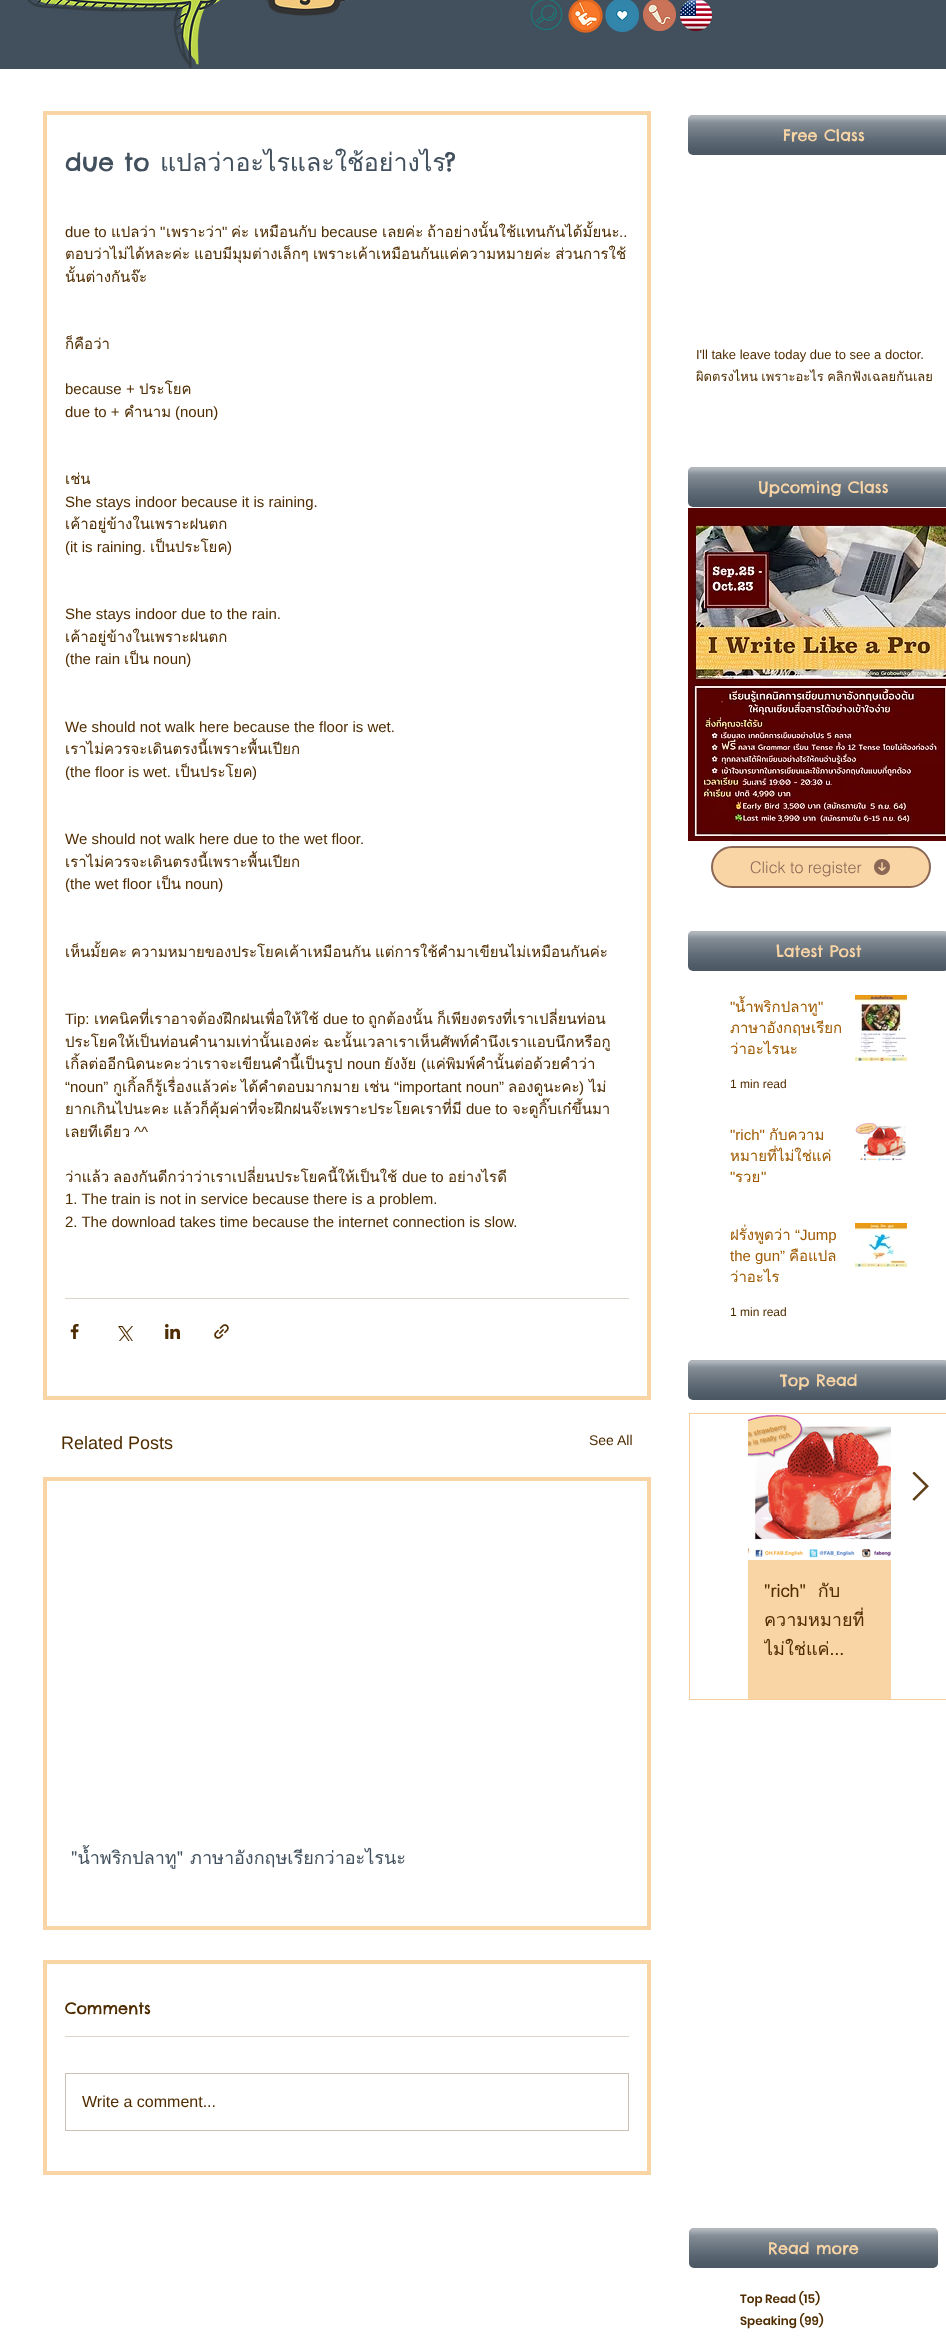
<svg xmlns="http://www.w3.org/2000/svg" width="946" height="2344" viewBox="0 0 946 2344">
  <defs>
    <clipPath id="clip1"><rect x="730" y="996" width="115" height="63"/></clipPath>
    <clipPath id="clip2"><rect x="730" y="1224" width="115" height="63"/></clipPath>
    <clipPath id="clip3"><rect x="764" y="1576" width="111" height="87"/></clipPath>
  </defs>
  <rect width="100%" height="100%" fill="rgb(66,80,93)"/>
  <image x="27" y="0" width="194" height="68" href="pic1.png"/>
  <image x="265" y="0" width="82" height="16" href="pic2.png"/>
  <image x="530" y="0" width="33" height="31" href="pic3.png"/>
  <image x="568" y="0" width="35" height="33" href="pic4.png"/>
  <image x="605" y="0" width="34" height="32" href="pic5.png"/>
  <image x="643" y="0" width="33" height="31" href="pic6.png"/>
  <image x="680" y="0" width="32" height="31" href="pic7.png"/>
  <rect x="0" y="69" width="946" height="2275" fill="rgb(255,255,255)"/>
  <rect x="45" y="113" width="604" height="1285" fill="none" stroke="rgb(249,213,166)" stroke-width="4"/>
  <text x="65" y="171" font-family="Chelsea Market" font-size="25" fill="rgb(66,80,93)">due to</text>
  <text x="160" y="171" font-family="Loma" font-size="25" fill="rgb(66,80,93)">แปลว่าอะไรและใช้อย่างไร</text>
  <text x="445" y="171" font-family="Chelsea Market" font-size="25" fill="rgb(66,80,93)">?</text>
  <text x="65" y="237" font-family="Liberation Sans" font-size="15" fill="rgb(79,44,0)">due to</text>
  <text x="111" y="237" font-family="Loma" font-size="15" fill="rgb(79,44,0)">แปลว่า</text>
  <text x="160" y="237" font-family="Liberation Sans" font-size="15" fill="rgb(79,44,0)">"</text>
  <text x="166" y="237" font-family="Loma" font-size="15" fill="rgb(79,44,0)">เพราะว่า</text>
  <text x="222" y="237" font-family="Liberation Sans" font-size="15" fill="rgb(79,44,0)">"</text>
  <g font-family="Loma" font-size="15" fill="rgb(79,44,0)">
    <text x="231" y="237">ค่ะ</text>
    <text x="254" y="237">เหมือนกับ</text>
  </g>
  <text x="321" y="237" font-family="Liberation Sans" font-size="15" fill="rgb(79,44,0)">because</text>
  <g font-family="Loma" font-size="15" fill="rgb(79,44,0)">
    <text x="382" y="237">เลยค่ะ</text>
    <text x="427" y="237">ถ้าอย่างนั้นใช้แทนกันได้มั้ยนะ</text>
  </g>
  <text x="619" y="237" font-family="Liberation Sans" font-size="15" fill="rgb(79,44,0)">..</text>
  <g font-family="Loma" font-size="15" fill="rgb(79,44,0)">
    <text>
      <tspan x="65" y="259" word-spacing="-1">ตอบว่าไม่ได้หละค่ะ แอบมีมุมต่างเล็กๆ เพราะเค้าเหมือนกันแค่ความหมายค่ะ ส่วนการใช้</tspan>
      <tspan x="65" y="282">นั้นต่างกันจ๊ะ</tspan>
    </text>
    <text x="65" y="349">ก็คือว่า</text>
  </g>
  <text x="65" y="394" font-family="Liberation Sans" font-size="15" fill="rgb(79,44,0)">because +</text>
  <text x="139" y="394" font-family="Loma" font-size="15" fill="rgb(79,44,0)">ประโยค</text>
  <text x="65" y="417" font-family="Liberation Sans" font-size="15" fill="rgb(79,44,0)">due to +</text>
  <text x="124" y="417" font-family="Loma" font-size="15" fill="rgb(79,44,0)">คำนาม</text>
  <text x="175" y="417" font-family="Liberation Sans" font-size="15" fill="rgb(79,44,0)">(noun)</text>
  <text x="65" y="484" font-family="Loma" font-size="15" fill="rgb(79,44,0)">เช่น</text>
  <text x="65" y="507" font-family="Liberation Sans" font-size="15" fill="rgb(79,44,0)">She stays indoor because it is raining.</text>
  <text x="65" y="529" font-family="Loma" font-size="15" fill="rgb(79,44,0)">เค้าอยู่ข้างในเพราะฝนตก</text>
  <text x="65" y="552" font-family="Liberation Sans" font-size="15" fill="rgb(79,44,0)">(it is raining.</text>
  <text x="150" y="552" font-family="Loma" font-size="15" fill="rgb(79,44,0)">เป็นประโยค</text>
  <g font-family="Liberation Sans" font-size="15" fill="rgb(79,44,0)">
    <text x="227" y="552">)</text>
    <text x="65" y="619">She stays indoor due to the rain.</text>
  </g>
  <text x="65" y="642" font-family="Loma" font-size="15" fill="rgb(79,44,0)">เค้าอยู่ข้างในเพราะฝนตก</text>
  <text x="65" y="664" font-family="Liberation Sans" font-size="15" fill="rgb(79,44,0)">(the rain</text>
  <text x="124" y="664" font-family="Loma" font-size="15" fill="rgb(79,44,0)">เป็น</text>
  <g font-family="Liberation Sans" font-size="15" fill="rgb(79,44,0)">
    <text x="153" y="664">noun)</text>
    <text x="65" y="732">We should not walk here because the floor is wet.</text>
  </g>
  <text x="65" y="754" font-family="Loma" font-size="15" fill="rgb(79,44,0)">เราไม่ควรจะเดินตรงนี้เพราะพื้นเปียก</text>
  <text x="65" y="777" font-family="Liberation Sans" font-size="15" fill="rgb(79,44,0)">(the floor is wet.</text>
  <text x="175" y="777" font-family="Loma" font-size="15" fill="rgb(79,44,0)">เป็นประโยค</text>
  <g font-family="Liberation Sans" font-size="15" fill="rgb(79,44,0)">
    <text x="252" y="777">)</text>
    <text x="65" y="844">We should not walk here due to the wet floor.</text>
  </g>
  <text x="65" y="867" font-family="Loma" font-size="15" fill="rgb(79,44,0)">เราไม่ควรจะเดินตรงนี้เพราะพื้นเปียก</text>
  <text x="65" y="889" font-family="Liberation Sans" font-size="15" fill="rgb(79,44,0)">(the wet floor</text>
  <text x="156" y="889" font-family="Loma" font-size="15" fill="rgb(79,44,0)">เป็น</text>
  <text x="185" y="889" font-family="Liberation Sans" font-size="15" fill="rgb(79,44,0)">noun)</text>
  <text x="65" y="957" word-spacing="-1" font-family="Loma" font-size="15" fill="rgb(79,44,0)">เห็นมั้ยคะ ความหมายของประโยคเค้าเหมือนกัน แต่การใช้คำมาเขียนไม่เหมือนกันค่ะ</text>
  <text x="65" y="1024" font-family="Liberation Sans" font-size="15" fill="rgb(79,44,0)">Tip:</text>
  <text x="94" y="1024" font-family="Loma" font-size="15" fill="rgb(79,44,0)">เทคนิคที่เราอาจต้องฝึกฝนเพื่อให้ใช้</text>
  <text x="323" y="1024" font-family="Liberation Sans" font-size="15" fill="rgb(79,44,0)">due to</text>
  <g font-family="Loma" font-size="15" fill="rgb(79,44,0)">
    <text x="368" y="1024">ถูกต้องนั้น</text>
    <text x="437" y="1024">ก็เพียงตรงที่เราเปลี่ยนท่อน</text>
    <text>
      <tspan x="65" y="1047" word-spacing="-1">ประโยคให้เป็นท่อนคำนามเท่านั้นเองค่ะ ฉะนั้นเวลาเราเห็นศัพท์คำนึงเราแอบนึกหรือกู</tspan>
      <tspan x="65" y="1069">เกิ้ลต่ออีกนิดนะคะว่าเราจะเขียนคำนี้เป็นรูป</tspan>
    </text>
  </g>
  <text x="347" y="1069" font-family="Liberation Sans" font-size="15" fill="rgb(79,44,0)">noun</text>
  <text x="384" y="1069" font-family="Loma" font-size="15" fill="rgb(79,44,0)">ยังงัย</text>
  <text x="421" y="1069" font-family="Liberation Sans" font-size="15" fill="rgb(79,44,0)">(</text>
  <text x="426" y="1069" font-family="Loma" font-size="15" fill="rgb(79,44,0)">แค่พิมพ์คำนั้นต่อด้วยคำว่า</text>
  <text x="65" y="1092" font-family="Liberation Sans" font-size="15" fill="rgb(79,44,0)">“noun”</text>
  <g font-family="Loma" font-size="15" fill="rgb(79,44,0)">
    <text x="113" y="1092">กูเกิ้ลก็รู้เรื่องแล้วค่ะ</text>
    <text x="241" y="1092">ได้คำตอบมากมาย</text>
    <text x="364" y="1092">เช่น</text>
  </g>
  <text x="394" y="1092" font-family="Liberation Sans" font-size="15" fill="rgb(79,44,0)">“important noun”</text>
  <text x="508" y="1092" font-family="Loma" font-size="15" fill="rgb(79,44,0)">ลองดูนะคะ</text>
  <text x="579" y="1092" font-family="Liberation Sans" font-size="15" fill="rgb(79,44,0)">)</text>
  <g font-family="Loma" font-size="15" fill="rgb(79,44,0)">
    <text x="589" y="1092">ไม่</text>
    <text x="65" y="1114">ยากเกินไปนะคะ</text>
    <text x="173" y="1114">แล้วก็คุ้มค่าที่จะฝึกฝนจ๊ะเพราะประโยคเราที่มี</text>
  </g>
  <text x="466" y="1114" font-family="Liberation Sans" font-size="15" fill="rgb(79,44,0)">due to</text>
  <g font-family="Loma" font-size="15" fill="rgb(79,44,0)">
    <text x="512" y="1114">จะดูกิ๊บเก๋ขึ้นมา</text>
    <text x="65" y="1137">เลยทีเดียว</text>
  </g>
  <text x="134" y="1137" font-family="Liberation Sans" font-size="15" fill="rgb(79,44,0)">^^</text>
  <g font-family="Loma" font-size="15" fill="rgb(79,44,0)">
    <text x="65" y="1182">ว่าแล้ว</text>
    <text x="113" y="1182">ลองกันดีกว่าว่าเราเปลี่ยนประโยคนี้ให้เป็นใช้</text>
  </g>
  <text x="402" y="1182" font-family="Liberation Sans" font-size="15" fill="rgb(79,44,0)">due to</text>
  <text x="448" y="1182" font-family="Loma" font-size="15" fill="rgb(79,44,0)">อย่างไรดี</text>
  <g font-family="Liberation Sans" font-size="15" fill="rgb(79,44,0)">
    <text>
      <tspan x="65" y="1204">1. The train is not in service because there is a problem.</tspan>
      <tspan x="65" y="1227">2. The download takes time because the internet connection is slow.</tspan>
    </text>
  </g>
  <rect x="65" y="1298" width="564" height="1" fill="rgb(220,213,204)"/>
  <image x="70" y="1324" width="9" height="15" href="pic8.png"/>
  <image x="118" y="1326" width="15" height="15" href="pic9.png"/>
  <image x="165" y="1324" width="15" height="15" href="pic10.png"/>
  <image x="214" y="1324" width="15" height="15" href="pic11.png"/>
  <text x="61" y="1449" font-family="Liberation Sans" font-size="18" fill="rgb(79,44,0)">Related Posts</text>
  <text x="589" y="1445" font-family="Liberation Sans" font-size="14" fill="rgb(79,44,0)">See All</text>
  <rect x="45" y="1479" width="604" height="449" fill="none" stroke="rgb(249,213,166)" stroke-width="4"/>
  <text x="71" y="1864" word-spacing="1" font-family="Loma" font-size="18" fill="rgb(66,80,93)">"น้ำพริกปลาทู" ภาษาอังกฤษเรียกว่าอะไรนะ</text>
  <rect x="45" y="1962" width="604" height="211" fill="none" stroke="rgb(249,213,166)" stroke-width="4"/>
  <text x="65" y="2014" font-family="Chelsea Market" font-size="16" fill="rgb(79,44,0)">Comments</text>
  <rect x="65" y="2036" width="564" height="1" fill="rgb(220,213,204)"/>
  <rect x="65.5" y="2073.5" width="563" height="57" fill="none" stroke="rgb(202,192,179)"/>
  <text x="82" y="2107" font-family="Liberation Sans" font-size="16" fill="rgb(79,44,0)">Write a comment...</text>
  <rect x="688" y="115" width="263" height="40" rx="5" fill="rgb(66,80,93)"/>
  <image x="688" y="115" width="258" height="40" href="pic12.png"/>
  <text x="783" y="141" font-family="Chelsea Market" font-size="16" fill="rgb(249,213,166)">Free Class</text>
  <text x="696" y="359" font-family="Liberation Sans" font-size="13" fill="rgb(79,44,0)">I'll take leave today due to see a doctor.</text>
  <text x="696" y="381" word-spacing="-1" font-family="Loma" font-size="13" fill="rgb(79,44,0)">ผิดตรงไหน เพราะอะไร คลิกฟังเฉลยกันเลย</text>
  <rect x="688" y="467" width="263" height="40" rx="5" fill="rgb(66,80,93)"/>
  <image x="688" y="467" width="258" height="40" href="pic12.png"/>
  <text x="758" y="493" font-family="Chelsea Market" font-size="16" fill="rgb(249,213,166)">Upcoming Class</text>
  <image x="688" y="508" width="258" height="333" href="pic13.png"/>
  <rect x="712" y="847" width="218" height="40" rx="20" fill="rgb(249,213,166)" stroke="rgb(139,103,85)" stroke-width="2"/>
  <text x="750" y="873" font-family="helvetica" font-size="16" font-weight="300" fill="rgb(139,103,85)">Click to register</text>
  <image x="874" y="859" width="16" height="16" href="pic14.png"/>
  <rect x="688" y="931" width="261" height="40" rx="5" fill="rgb(66,80,93)"/>
  <image x="688" y="931" width="258" height="40" href="pic15.png"/>
  <text x="776" y="957" font-family="Chelsea Market" font-size="16" fill="rgb(249,213,166)">Latest Post</text>
  <text x="730" y="1012" font-family="Liberation Sans" font-size="15" fill="rgb(158,89,0)">"</text>
  <text x="735" y="1012" font-family="Loma" font-size="15" fill="rgb(158,89,0)">น้ำพริกปลาทู</text>
  <text x="818" y="1012" font-family="Liberation Sans" font-size="15" fill="rgb(158,89,0)">"</text>
  <text x="730" y="1033" font-family="Loma" font-size="15" fill="rgb(158,89,0)">ภาษาอังกฤษเรียก</text>
  <g clip-path="url(#clip1)">
    <text x="730" y="1054" font-family="Loma" font-size="15" fill="rgb(158,89,0)">ว่าอะไรนะ</text>
  </g>
  <text x="730" y="1088" font-family="Liberation Sans" font-size="12" fill="rgb(79,44,0)">1 min read</text>
  <image x="855" y="995" width="52" height="66" href="pic16.png"/>
  <text x="730" y="1140" font-family="Liberation Sans" font-size="15" fill="rgb(158,89,0)">"rich"</text>
  <g font-family="Loma" font-size="15" fill="rgb(158,89,0)">
    <text x="769" y="1140">กับความ</text>
    <text x="730" y="1161">หมายที่ไม่ใช่แค่</text>
  </g>
  <text x="730" y="1182" font-family="Liberation Sans" font-size="15" fill="rgb(158,89,0)">"</text>
  <text x="735" y="1182" font-family="Loma" font-size="15" fill="rgb(158,89,0)">รวย</text>
  <text x="761" y="1182" font-family="Liberation Sans" font-size="15" fill="rgb(158,89,0)">"</text>
  <image x="855" y="1123" width="52" height="38" href="pic17.png"/>
  <text x="730" y="1240" font-family="Loma" font-size="15" fill="rgb(158,89,0)">ฝรั่งพูดว่า</text>
  <g font-family="Liberation Sans" font-size="15" fill="rgb(158,89,0)">
    <text x="795" y="1240">“Jump</text>
    <text x="730" y="1261">the gun”</text>
  </g>
  <text x="789" y="1261" font-family="Loma" font-size="15" fill="rgb(158,89,0)">คือแปล</text>
  <g clip-path="url(#clip2)">
    <text x="730" y="1282" font-family="Loma" font-size="15" fill="rgb(158,89,0)">ว่าอะไร</text>
  </g>
  <text x="730" y="1316" font-family="Liberation Sans" font-size="12" fill="rgb(79,44,0)">1 min read</text>
  <image x="855" y="1223" width="52" height="44" href="pic18.png"/>
  <rect x="688" y="1360" width="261" height="40" rx="5" fill="rgb(66,80,93)"/>
  <image x="688" y="1360" width="258" height="40" href="pic15.png"/>
  <text x="780" y="1386" font-family="Chelsea Market" font-size="16" fill="rgb(249,213,166)">Top Read</text>
  <rect x="689.5" y="1413.5" width="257" height="286" fill="none" stroke="rgb(246,206,155)"/>
  <image x="912" y="1472" width="17" height="29" href="pic19.png"/>
  <image x="748" y="1414" width="143" height="146" href="pic20.png"/>
  <rect x="748" y="1560" width="143" height="139" fill="rgb(249,213,166)"/>
  <g font-family="Loma" font-size="18" fill="rgb(79,44,0)">
    <text>
      <tspan x="764" y="1597" word-spacing="6">"rich" กับ</tspan>
      <tspan x="764" y="1626">ความหมายที่</tspan>
    </text>
  </g>
  <g clip-path="url(#clip3)">
    <text x="764" y="1655" font-family="Loma" font-size="18" fill="rgb(79,44,0)">ไม่ใช่แค่…</text>
  </g>
  <rect x="689" y="2228" width="249" height="40" rx="5" fill="rgb(66,80,93)"/>
  <image x="689" y="2228" width="249" height="40" href="pic21.png"/>
  <text x="768" y="2254" font-family="Chelsea Market" font-size="16" fill="rgb(249,213,166)">Read more</text>
  <g font-family="Poppins" font-size="12" font-weight="600" fill="rgb(79,44,0)">
    <text>
      <tspan x="740" y="2303">Top Read (15)</tspan>
      <tspan x="740" y="2325">Speaking (99)</tspan>
    </text>
  </g>
</svg>
